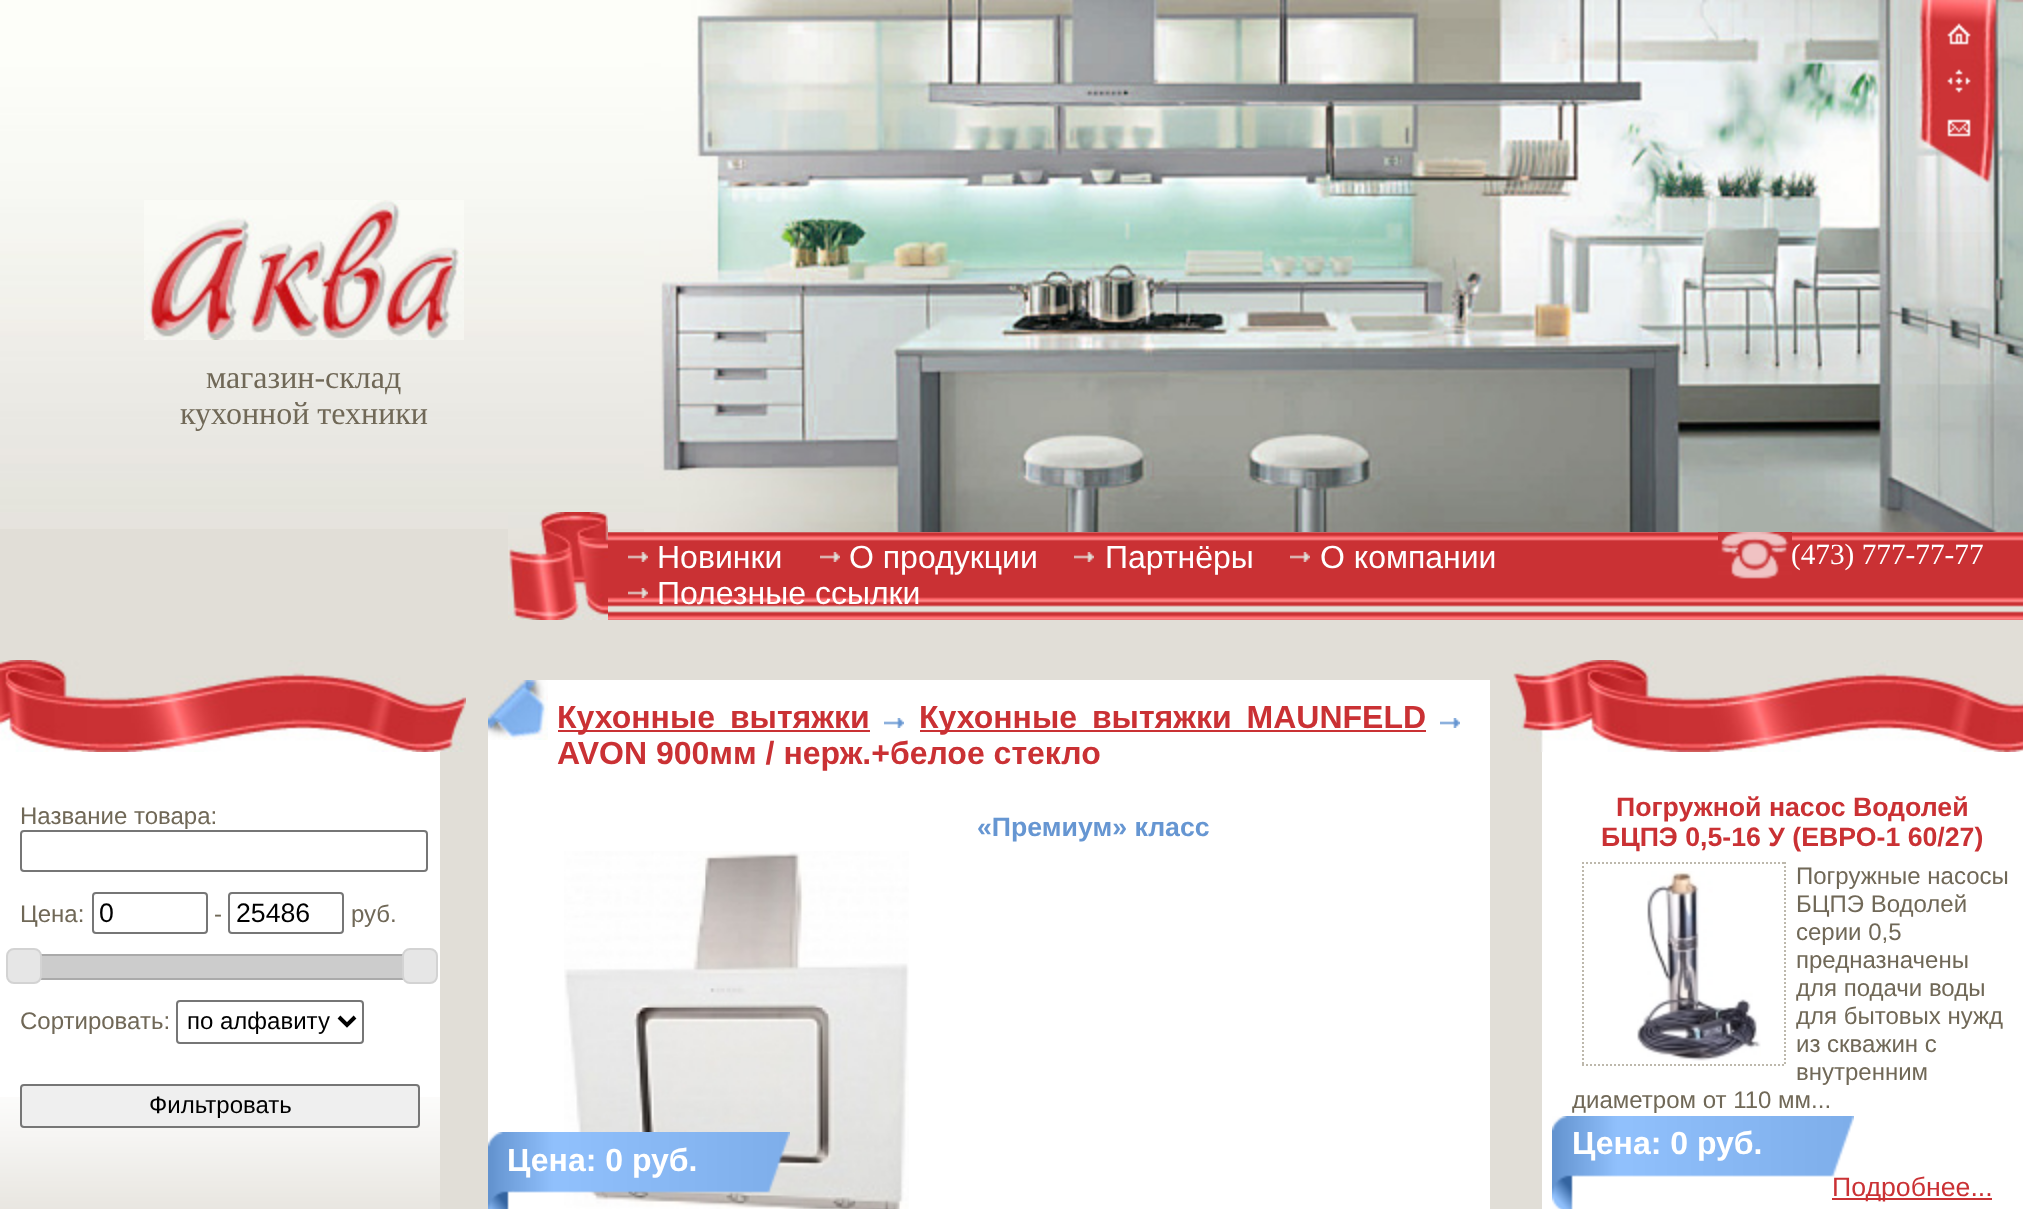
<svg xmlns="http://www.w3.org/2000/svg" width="2023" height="1209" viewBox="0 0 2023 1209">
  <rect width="100%" height="100%" fill="rgb(225,222,215)"/>
  <image x="0" y="0" width="644" height="529" href="pic1.png"/>
  <image x="508" y="512" width="100" height="108" href="pic2.png"/>
  <image x="144" y="200" width="320" height="140" href="pic3.png"/>
  <g font-family="Liberation Serif" font-size="32" fill="rgb(112,104,87)">
    <text x="206" y="388">магазин-склад</text>
    <text x="180" y="424">кухонной техники</text>
  </g>
  <image x="644" y="0" width="1379" height="532" href="pic4.png"/>
  <image x="1947" y="23" width="24" height="22" href="pic5.png"/>
  <image x="1947" y="69" width="24" height="24" href="pic6.png"/>
  <image x="1947" y="119" width="24" height="18" href="pic7.png"/>
  <image x="608" y="532" width="1415" height="88" href="pic8.png"/>
  <image x="628" y="552" width="20" height="10" href="pic9.png"/>
  <text x="657" y="568" font-family="Liberation Sans" font-size="32" fill="rgb(255,255,255)">Новинки</text>
  <image x="820" y="552" width="20" height="10" href="pic9.png"/>
  <text x="849" y="568" font-family="Liberation Sans" font-size="32" fill="rgb(255,255,255)">О продукции</text>
  <image x="1074" y="552" width="20" height="10" href="pic9.png"/>
  <text x="1105" y="568" font-family="Liberation Sans" font-size="32" fill="rgb(255,255,255)">Партнёры</text>
  <image x="1290" y="552" width="20" height="10" href="pic9.png"/>
  <text x="1320" y="568" font-family="Liberation Sans" font-size="32" fill="rgb(255,255,255)">О компании</text>
  <image x="628" y="588" width="20" height="10" href="pic10.png"/>
  <text x="657" y="604" font-family="Liberation Sans" font-size="32" fill="rgb(255,255,255)">Полезные ссылки</text>
  <image x="1718" y="532" width="74" height="47" href="pic11.png"/>
  <text x="1791" y="564" font-family="Liberation Serif" font-size="29.25" fill="rgb(255,255,255)">(473) 777-77-77</text>
  <image x="0" y="660" width="466" height="92" href="pic12.png"/>
  <rect x="0" y="752" width="440" height="345" fill="rgb(255,255,255)"/>
  <image x="0" y="1097" width="440" height="112" href="pic13.png"/>
  <text x="20" y="824" font-family="Liberation Sans" font-size="24" fill="rgb(112,104,87)">Название товара:</text>
  <rect x="21" y="831" width="406" height="40" rx="3" fill="none" stroke="rgb(118,118,118)" stroke-width="2"/>
  <text x="20" y="922" font-family="Liberation Sans" font-size="24" fill="rgb(112,104,87)">Цена:</text>
  <rect x="93" y="893" width="114" height="40" rx="3" fill="none" stroke="rgb(118,118,118)" stroke-width="2"/>
  <text x="99" y="922" font-family="Liberation Sans" font-size="26.7" fill="rgb(0,0,0)">0</text>
  <text x="214" y="922" font-family="Liberation Sans" font-size="24" fill="rgb(112,104,87)">-</text>
  <rect x="229" y="893" width="114" height="40" rx="3" fill="none" stroke="rgb(118,118,118)" stroke-width="2"/>
  <text x="236" y="922" font-family="Liberation Sans" font-size="26.7" fill="rgb(0,0,0)">25486</text>
  <text x="351" y="922" font-family="Liberation Sans" font-size="24" fill="rgb(112,104,87)">руб.</text>
  <rect x="21" y="955" width="398" height="24" fill="none" stroke="rgb(170,170,170)" stroke-width="2"/>
  <rect x="41" y="956" width="362" height="22" fill="rgb(204,204,204)"/>
  <rect x="7" y="949" width="34" height="34" rx="7" fill="rgb(230,230,230)" stroke="rgb(211,211,211)" stroke-width="2"/>
  <rect x="403" y="949" width="34" height="34" rx="7" fill="rgb(230,230,230)" stroke="rgb(211,211,211)" stroke-width="2"/>
  <text x="20" y="1029" font-family="Liberation Sans" font-size="24" fill="rgb(112,104,87)">Сортировать:</text>
  <rect x="177" y="1001" width="186" height="42" rx="3" fill="none" stroke="rgb(118,118,118)" stroke-width="2"/>
  <path d="M339 1017L347 1025L355 1017" fill="none" stroke="rgb(0,0,0)" stroke-width="4"/>
  <text x="187" y="1029" font-family="Liberation Sans" font-size="24" fill="rgb(0,0,0)">по алфавиту</text>
  <rect x="21" y="1085" width="398" height="42" rx="3" fill="rgb(239,239,239)" stroke="rgb(118,118,118)" stroke-width="2"/>
  <text x="149" y="1113" font-family="Liberation Sans" font-size="24" fill="rgb(0,0,0)">Фильтровать</text>
  <rect x="488" y="680" width="1002" height="529" fill="rgb(255,255,255)"/>
  <image x="488" y="680" width="60" height="60" href="pic14.png"/>
  <rect x="558" y="730" width="312" height="2" fill="rgb(202,49,52)"/>
  <text x="557" y="728" word-spacing="6" font-family="Liberation Sans" font-size="32" font-weight="bold" fill="rgb(202,49,52)">Кухонные вытяжки</text>
  <image x="884" y="718" width="20" height="10" href="pic15.png"/>
  <rect x="920" y="730" width="506" height="2" fill="rgb(202,49,52)"/>
  <text x="919" y="728" word-spacing="6" font-family="Liberation Sans" font-size="32" font-weight="bold" fill="rgb(202,49,52)">Кухонные вытяжки MAUNFELD</text>
  <image x="1440" y="718" width="20" height="10" href="pic15.png"/>
  <text x="557" y="764" font-family="Liberation Sans" font-size="32" font-weight="bold" fill="rgb(202,49,52)">AVON 900мм / нерж.+белое стекло</text>
  <text x="977" y="836" font-family="Liberation Sans" font-size="26.7" font-weight="bold" fill="rgb(102,150,210)">«Премиум» класс</text>
  <image x="564" y="851" width="345" height="358" href="pic16.png"/>
  <image x="488" y="1132" width="302" height="77" href="pic17.png"/>
  <text x="507" y="1171" font-family="Liberation Sans" font-size="32" font-weight="bold" fill="rgb(255,255,255)">Цена: 0 руб.</text>
  <image x="1512" y="660" width="511" height="92" href="pic18.png"/>
  <rect x="1542" y="752" width="481" height="457" fill="rgb(255,255,255)"/>
  <g font-family="Liberation Sans" font-size="26.7" font-weight="bold" fill="rgb(202,49,52)">
    <text x="1616" y="816">Погружной насос Водолей</text>
    <text x="1601" y="846">БЦПЭ 0,5-16 У (ЕВРО-1 60/27)</text>
  </g>
  <path d="M1582 863H1786" fill="none" stroke="rgb(189,184,172)" stroke-width="2" stroke-dasharray="2 2"/>
  <path d="M1785 862V1066" fill="none" stroke="rgb(189,184,172)" stroke-width="2" stroke-dasharray="2 2"/>
  <path d="M1582 1065H1786" fill="none" stroke="rgb(189,184,172)" stroke-width="2" stroke-dasharray="2 2"/>
  <path d="M1583 862V1066" fill="none" stroke="rgb(189,184,172)" stroke-width="2" stroke-dasharray="2 2"/>
  <image x="1637" y="871" width="124" height="190" href="pic19.png"/>
  <g font-family="Liberation Sans" font-size="24" fill="rgb(112,104,87)">
    <text>
      <tspan x="1796" y="884">Погружные насосы</tspan>
      <tspan x="1796" y="912">БЦПЭ Водолей</tspan>
      <tspan x="1796" y="940">серии 0,5</tspan>
      <tspan x="1796" y="968">предназначены</tspan>
      <tspan x="1796" y="996">для подачи воды</tspan>
      <tspan x="1796" y="1024">для бытовых нужд</tspan>
      <tspan x="1796" y="1052">из скважин с</tspan>
      <tspan x="1796" y="1080">внутренним</tspan>
    </text>
    <text x="1572" y="1108">диаметром от 110 мм...</text>
  </g>
  <image x="1552" y="1116" width="302" height="93" href="pic20.png"/>
  <text x="1572" y="1154" font-family="Liberation Sans" font-size="32" font-weight="bold" fill="rgb(255,255,255)">Цена: 0 руб.</text>
  <rect x="1832" y="1198" width="160" height="2" fill="rgb(202,49,52)"/>
  <text x="1832" y="1196" font-family="Liberation Sans" font-size="26.7" fill="rgb(202,49,52)">Подробнее...</text>
</svg>
